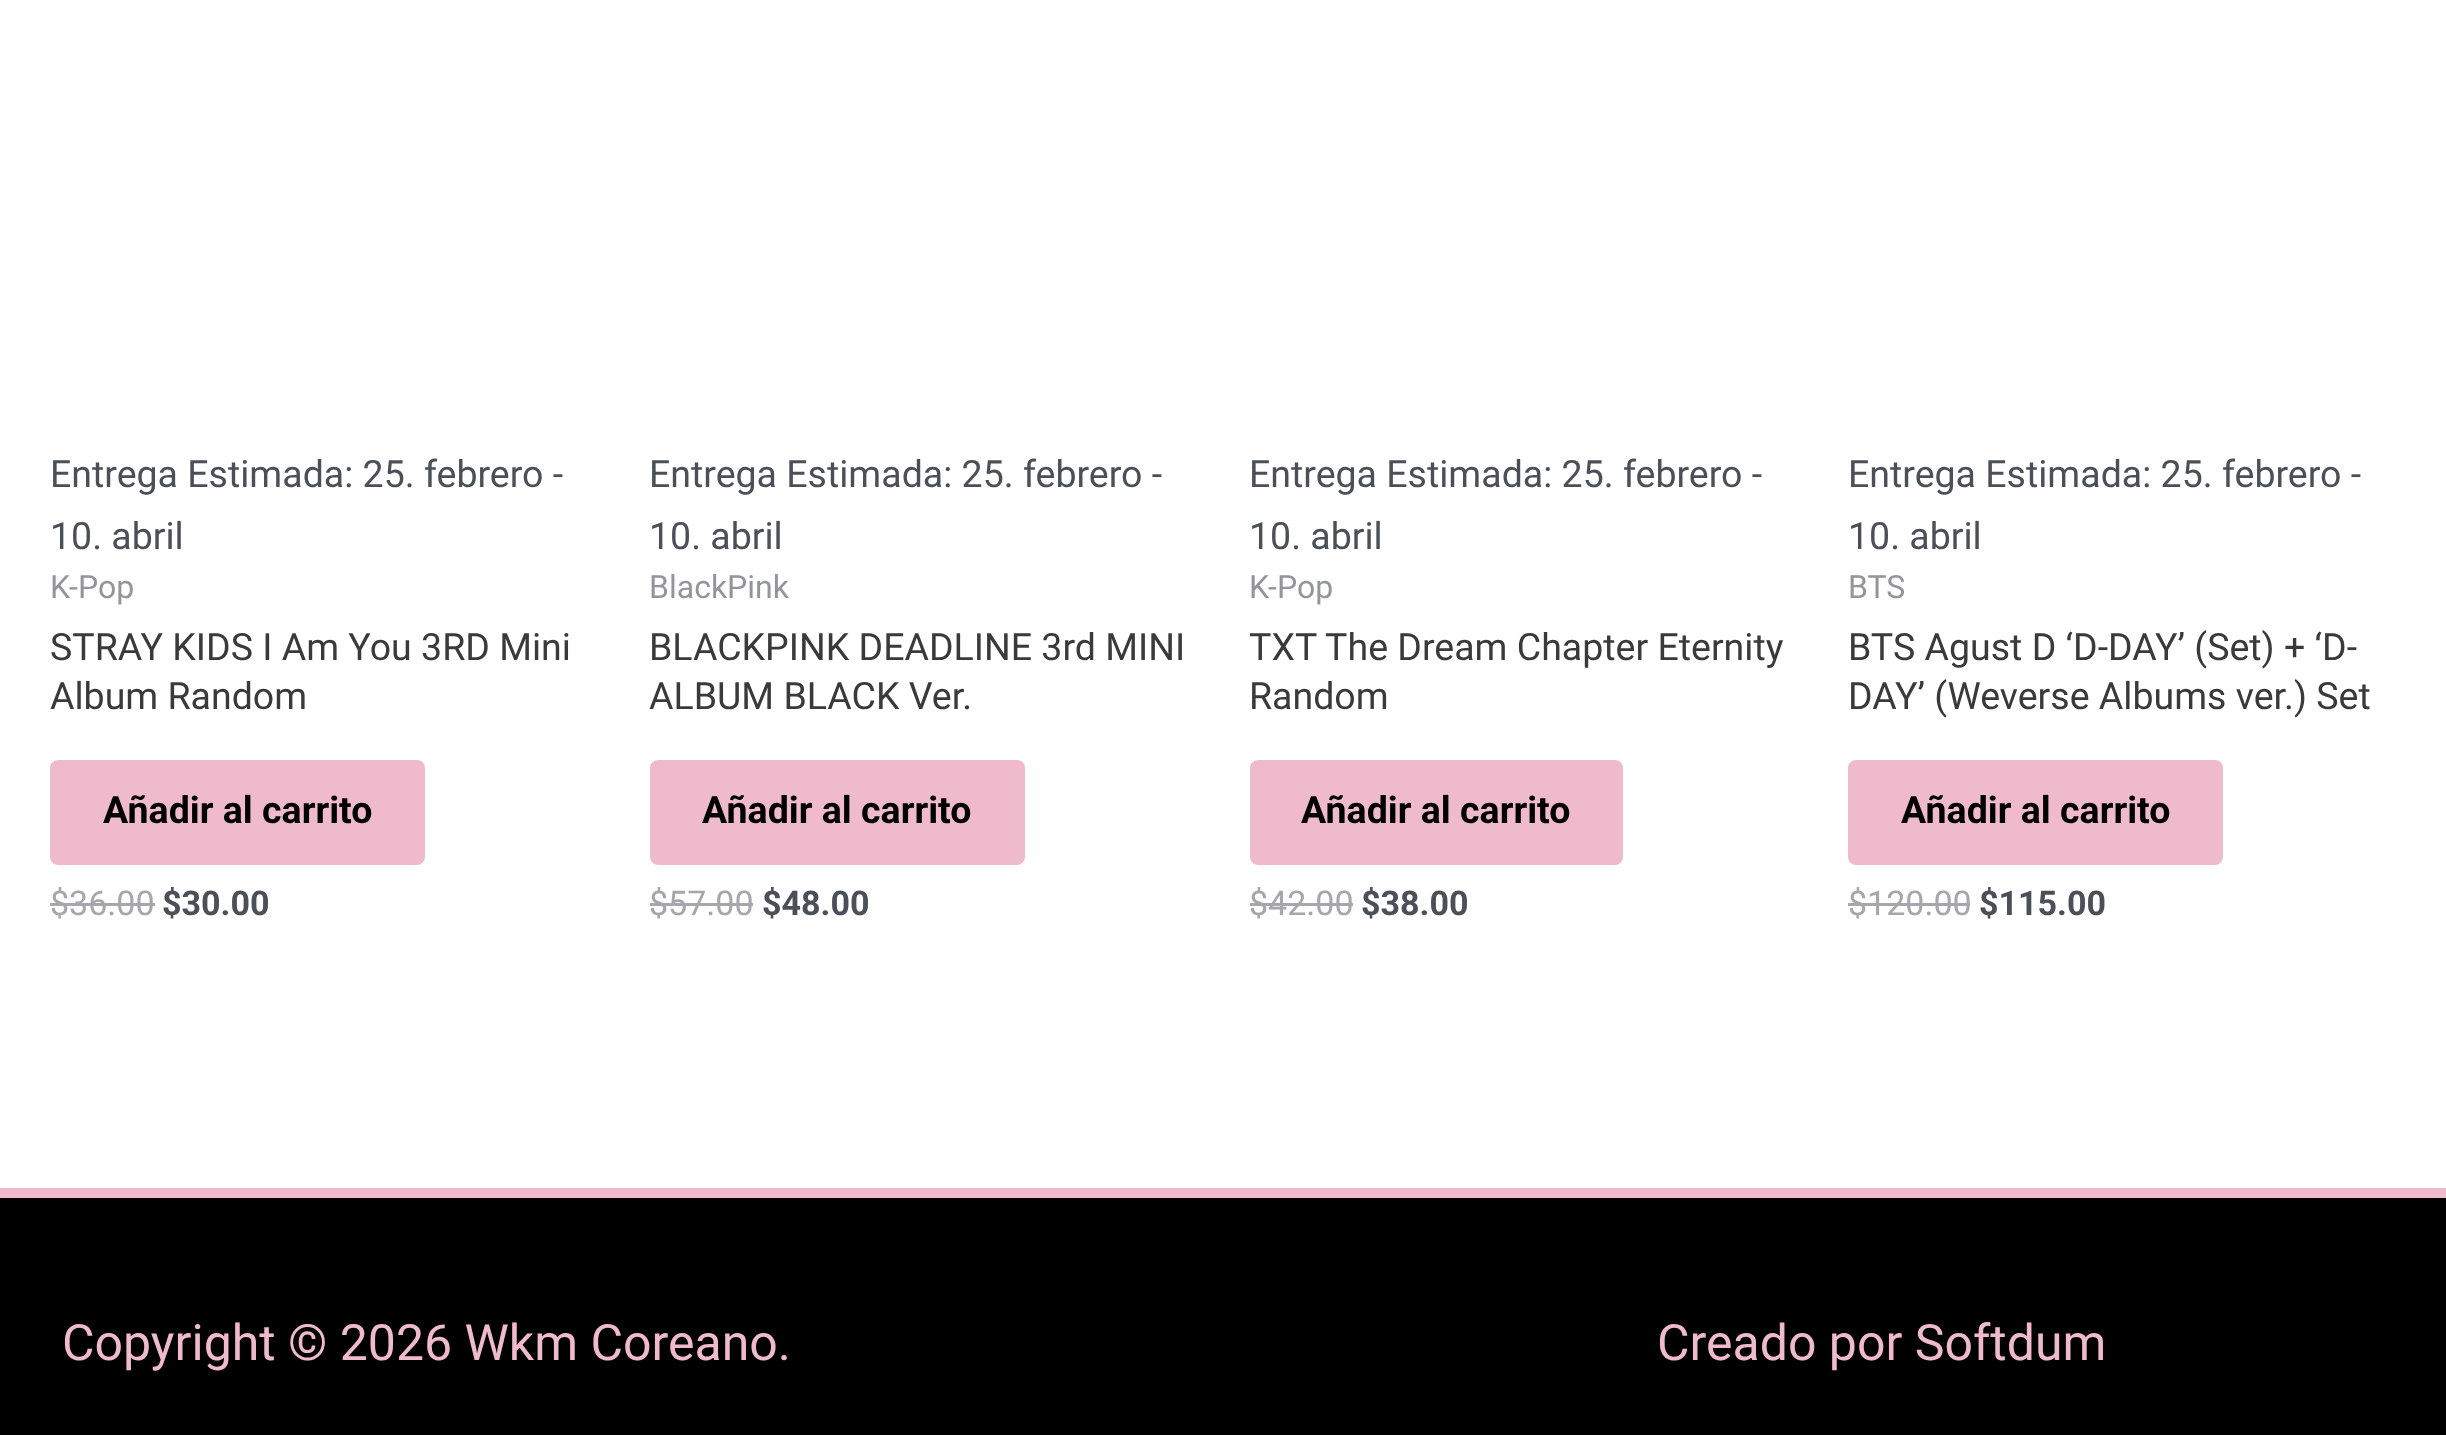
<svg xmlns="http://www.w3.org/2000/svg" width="2446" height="1435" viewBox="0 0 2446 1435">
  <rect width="100%" height="100%" fill="rgb(255,255,255)"/>
  <g font-family="Roboto" font-size="37.5" fill="rgb(75,79,88)">
    <text>
      <tspan x="50" y="487">Entrega Estimada: 25. febrero -</tspan>
      <tspan x="50" y="549">10. abril</tspan>
    </text>
  </g>
  <text x="50" y="598" font-family="Roboto" font-size="32" fill="rgb(147,149,155)">K-Pop</text>
  <g font-family="Roboto" font-size="37.5" fill="rgb(58,58,58)">
    <text>
      <tspan x="50" y="660">STRAY KIDS I Am You 3RD Mini</tspan>
      <tspan x="50" y="709">Album Random</tspan>
    </text>
  </g>
  <rect x="51.5" y="761.5" width="372" height="102" rx="6.5" fill="rgb(239,186,204)" stroke="rgb(239,186,204)" stroke-width="3"/>
  <text x="103" y="823" font-family="Roboto" font-size="37.5" font-weight="bold" fill="rgb(0,0,0)">Añadir al carrito</text>
  <text x="50" y="915" font-family="Roboto" font-size="34" fill="rgb(165,167,172)">$36.00</text>
  <rect x="50" y="903" width="105" height="3" fill="rgb(165,167,172)"/>
  <text x="162" y="915" font-family="Roboto" font-size="34" font-weight="bold" fill="rgb(75,79,88)">$30.00</text>
  <g font-family="Roboto" font-size="37.5" fill="rgb(75,79,88)">
    <text>
      <tspan x="649" y="487">Entrega Estimada: 25. febrero -</tspan>
      <tspan x="649" y="549">10. abril</tspan>
    </text>
  </g>
  <text x="649" y="598" font-family="Roboto" font-size="32" fill="rgb(147,149,155)">BlackPink</text>
  <g font-family="Roboto" font-size="37.5" fill="rgb(58,58,58)">
    <text>
      <tspan x="649" y="660">BLACKPINK DEADLINE 3rd MINI</tspan>
      <tspan x="649" y="709">ALBUM BLACK Ver.</tspan>
    </text>
  </g>
  <rect x="651.5" y="761.5" width="372" height="102" rx="6.5" fill="rgb(239,186,204)" stroke="rgb(239,186,204)" stroke-width="3"/>
  <text x="702" y="823" font-family="Roboto" font-size="37.5" font-weight="bold" fill="rgb(0,0,0)">Añadir al carrito</text>
  <text x="649" y="915" font-family="Roboto" font-size="34" fill="rgb(165,167,172)">$57.00</text>
  <rect x="650" y="903" width="103" height="3" fill="rgb(165,167,172)"/>
  <text x="762" y="915" font-family="Roboto" font-size="34" font-weight="bold" fill="rgb(75,79,88)">$48.00</text>
  <g font-family="Roboto" font-size="37.5" fill="rgb(75,79,88)">
    <text>
      <tspan x="1249" y="487">Entrega Estimada: 25. febrero -</tspan>
      <tspan x="1249" y="549">10. abril</tspan>
    </text>
  </g>
  <text x="1249" y="598" font-family="Roboto" font-size="32" fill="rgb(147,149,155)">K-Pop</text>
  <g font-family="Roboto" font-size="37.5" fill="rgb(58,58,58)">
    <text>
      <tspan x="1249" y="660">TXT The Dream Chapter Eternity</tspan>
      <tspan x="1249" y="709">Random</tspan>
    </text>
  </g>
  <rect x="1251.5" y="761.5" width="370" height="102" rx="6.5" fill="rgb(239,186,204)" stroke="rgb(239,186,204)" stroke-width="3"/>
  <text x="1301" y="823" font-family="Roboto" font-size="37.5" font-weight="bold" fill="rgb(0,0,0)">Añadir al carrito</text>
  <text x="1249" y="915" font-family="Roboto" font-size="34" fill="rgb(165,167,172)">$42.00</text>
  <rect x="1250" y="903" width="103" height="3" fill="rgb(165,167,172)"/>
  <text x="1361" y="915" font-family="Roboto" font-size="34" font-weight="bold" fill="rgb(75,79,88)">$38.00</text>
  <g font-family="Roboto" font-size="37.5" fill="rgb(75,79,88)">
    <text>
      <tspan x="1848" y="487">Entrega Estimada: 25. febrero -</tspan>
      <tspan x="1848" y="549">10. abril</tspan>
    </text>
  </g>
  <text x="1848" y="598" font-family="Roboto" font-size="32" fill="rgb(147,149,155)">BTS</text>
  <g font-family="Roboto" font-size="37.5" fill="rgb(58,58,58)">
    <text>
      <tspan x="1848" y="660">BTS Agust D ‘D-DAY’ (Set) + ‘D-</tspan>
      <tspan x="1848" y="709">DAY’ (Weverse Albums ver.) Set</tspan>
    </text>
  </g>
  <rect x="1849.5" y="761.5" width="372" height="102" rx="6.5" fill="rgb(239,186,204)" stroke="rgb(239,186,204)" stroke-width="3"/>
  <text x="1901" y="823" font-family="Roboto" font-size="37.5" font-weight="bold" fill="rgb(0,0,0)">Añadir al carrito</text>
  <text x="1848" y="915" font-family="Roboto" font-size="34" fill="rgb(165,167,172)">$120.00</text>
  <rect x="1848" y="903" width="122" height="3" fill="rgb(165,167,172)"/>
  <text x="1979" y="915" font-family="Roboto" font-size="34" font-weight="bold" fill="rgb(75,79,88)">$115.00</text>
  <rect x="0" y="1198" width="2446" height="237" fill="rgb(0,0,0)"/>
  <rect x="0" y="1188" width="2446" height="10" fill="rgb(239,186,204)"/>
  <g font-family="Roboto" font-size="50" fill="rgb(239,186,204)">
    <text x="62" y="1360">Copyright © 2026 Wkm Coreano.</text>
    <text x="1657" y="1360">Creado por Softdum</text>
  </g>
</svg>
